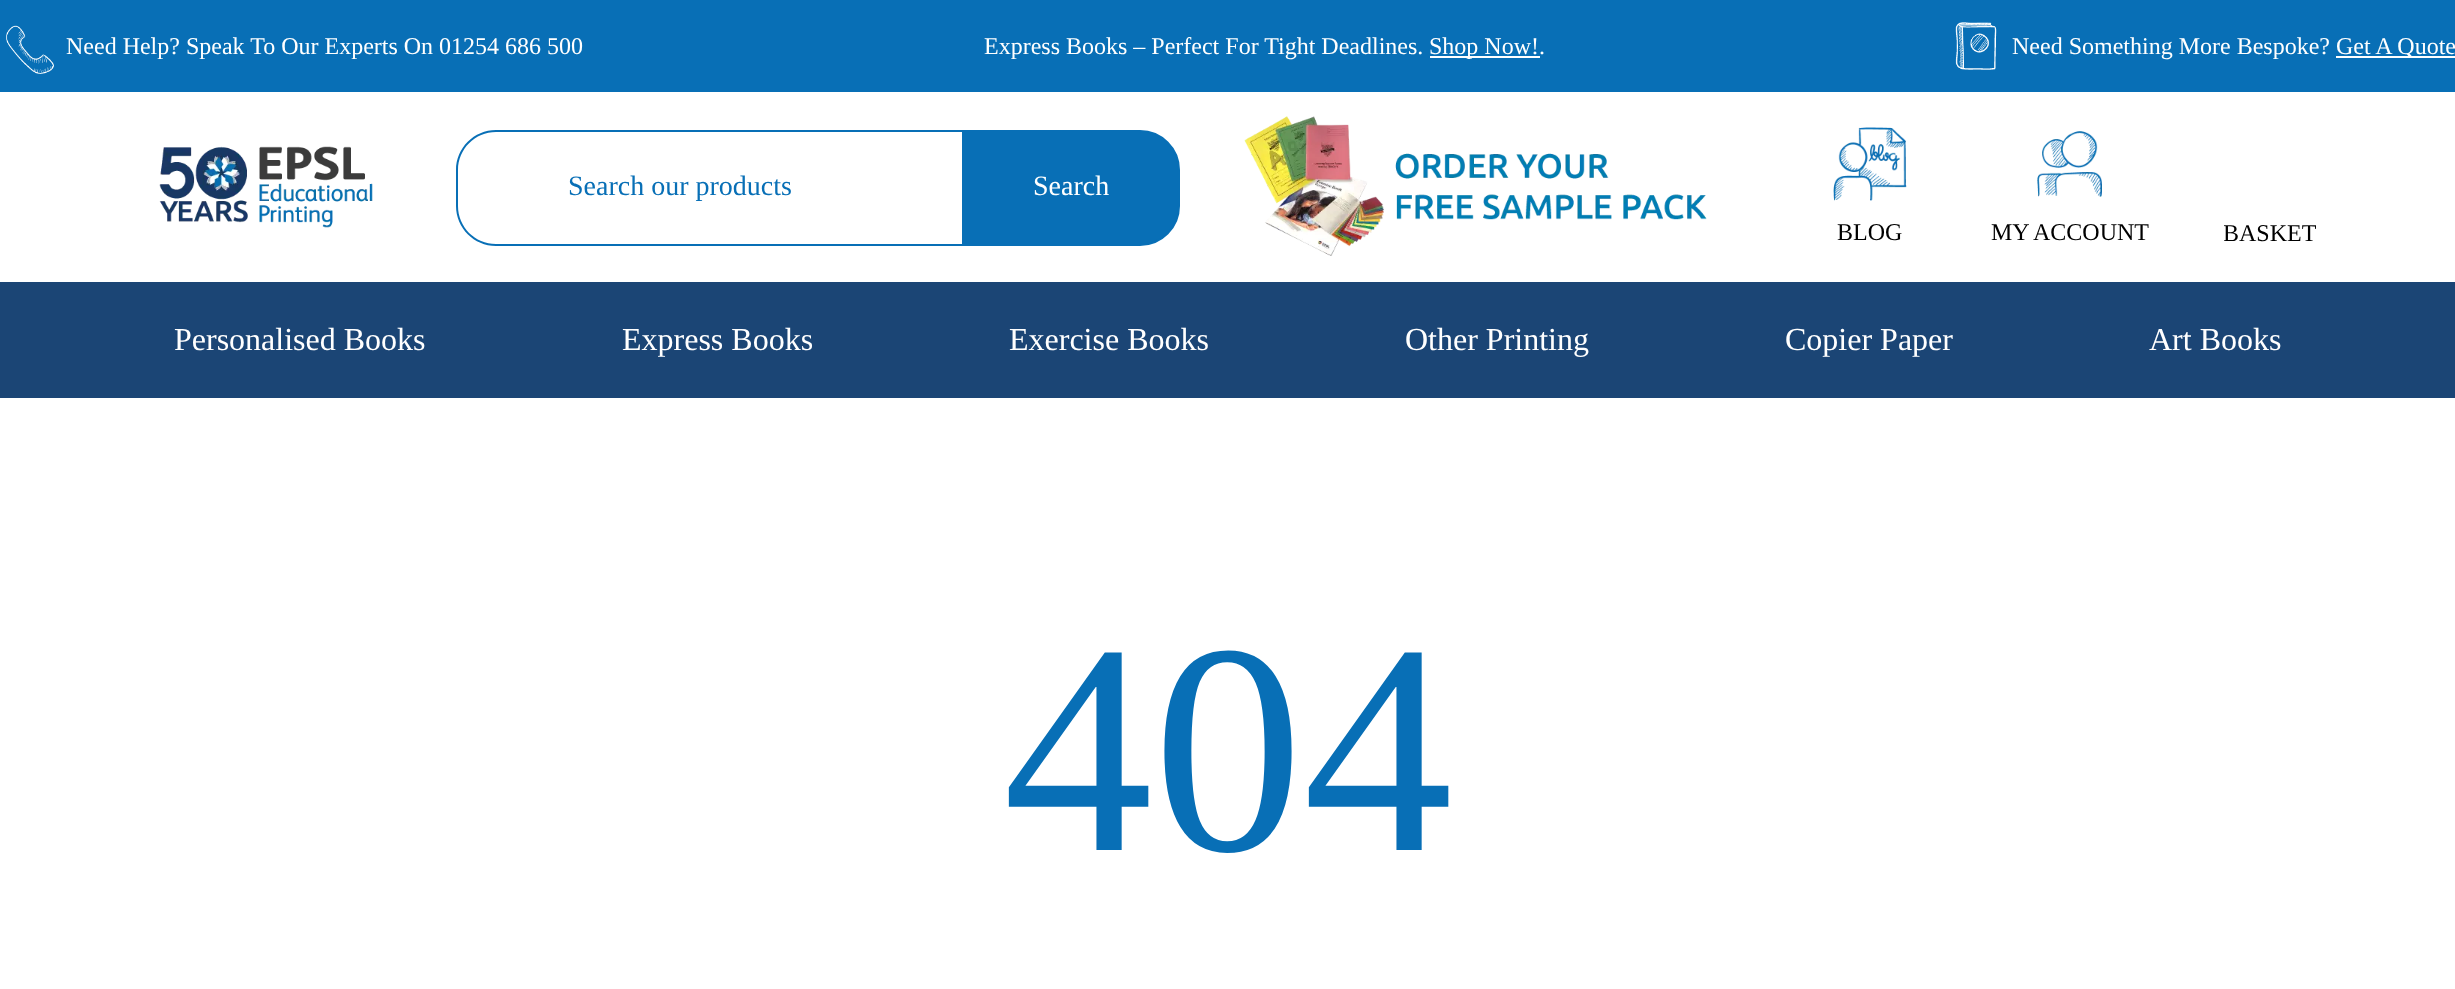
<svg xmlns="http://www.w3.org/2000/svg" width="2455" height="989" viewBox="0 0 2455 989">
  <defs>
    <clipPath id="clip1"><rect x="2224" y="216" width="92" height="36"/></clipPath>
  </defs>
  <rect width="100%" height="100%" fill="rgb(255,255,255)"/>
  <rect x="0" y="0" width="2455" height="92" fill="rgb(8,111,182)"/>
  <image x="6" y="25" width="48" height="49" href="pic1.png"/>
  <g font-family="Liberation Serif" font-size="24" fill="rgb(255,255,255)">
    <text x="66" y="54">Need Help? Speak To Our Experts On 01254 686 500</text>
    <text x="984" y="54">Express Books – Perfect For Tight Deadlines.</text>
  </g>
  <rect x="1430" y="56" width="110" height="2" fill="rgb(255,255,255)"/>
  <g font-family="Liberation Serif" font-size="24" fill="rgb(255,255,255)">
    <text x="1429" y="54">Shop Now!</text>
    <text x="1539" y="54">.</text>
  </g>
  <image x="1955" y="22" width="42" height="48" href="pic2.png"/>
  <text x="2012" y="54" font-family="Liberation Serif" font-size="24" fill="rgb(255,255,255)">Need Something More Bespoke?</text>
  <rect x="2336" y="56" width="119" height="2" fill="rgb(255,255,255)"/>
  <text x="2336" y="54" font-family="Liberation Serif" font-size="24" fill="rgb(255,255,255)">Get A Quote</text>
  <image x="159" y="146" width="214" height="82" href="pic3.png"/>
  <path d="M496 130H962V246H496C474 246 456 228 456 206V170C456 148 474 130 496 130ZM496 132H962V244H496C475 244 458 227 458 206V170C458 149 475 132 496 132Z" fill="rgb(8,111,182)" fill-rule="evenodd"/>
  <text x="568" y="195" font-family="Liberation Serif" font-size="28" fill="rgb(8,111,182)">Search our products</text>
  <path d="M963 131H1140C1161.5 131 1179 148.5 1179 170V206C1179 227.5 1161.5 245 1140 245H963Z" fill="rgb(8,111,182)" stroke="rgb(8,111,182)" stroke-width="2"/>
  <text x="1033" y="195" font-family="Liberation Serif" font-size="28" fill="rgb(255,255,255)">Search</text>
  <image x="1244" y="116" width="463" height="140" href="pic4.png"/>
  <image x="1833" y="127" width="74" height="74" href="pic5.png"/>
  <text x="1837" y="240" font-family="Liberation Serif" font-size="24" fill="rgb(0,0,0)">BLOG</text>
  <image x="2037" y="131" width="65" height="66" href="pic6.png"/>
  <g font-family="Liberation Serif" font-size="24" fill="rgb(0,0,0)">
    <text x="1991" y="240">MY</text>
    <text x="2033" y="240">ACCOUNT</text>
  </g>
  <g clip-path="url(#clip1)">
    <text x="2223" y="241" font-family="Liberation Serif" font-size="24" fill="rgb(0,0,0)">BASKET</text>
  </g>
  <rect x="0" y="282" width="2455" height="116" fill="rgb(27,69,117)"/>
  <g font-family="Liberation Serif" font-size="32" fill="rgb(255,255,255)">
    <text x="174" y="350">Personalised Books</text>
    <text x="622" y="350">Express Books</text>
    <text x="1009" y="350">Exercise Books</text>
    <text x="1405" y="350">Other Printing</text>
    <text x="1785" y="350">Copier Paper</text>
    <text x="2149" y="350">Art Books</text>
  </g>
  <text x="1003" y="850" font-family="Liberation Serif" font-size="300" fill="rgb(8,111,182)">404</text>
</svg>
